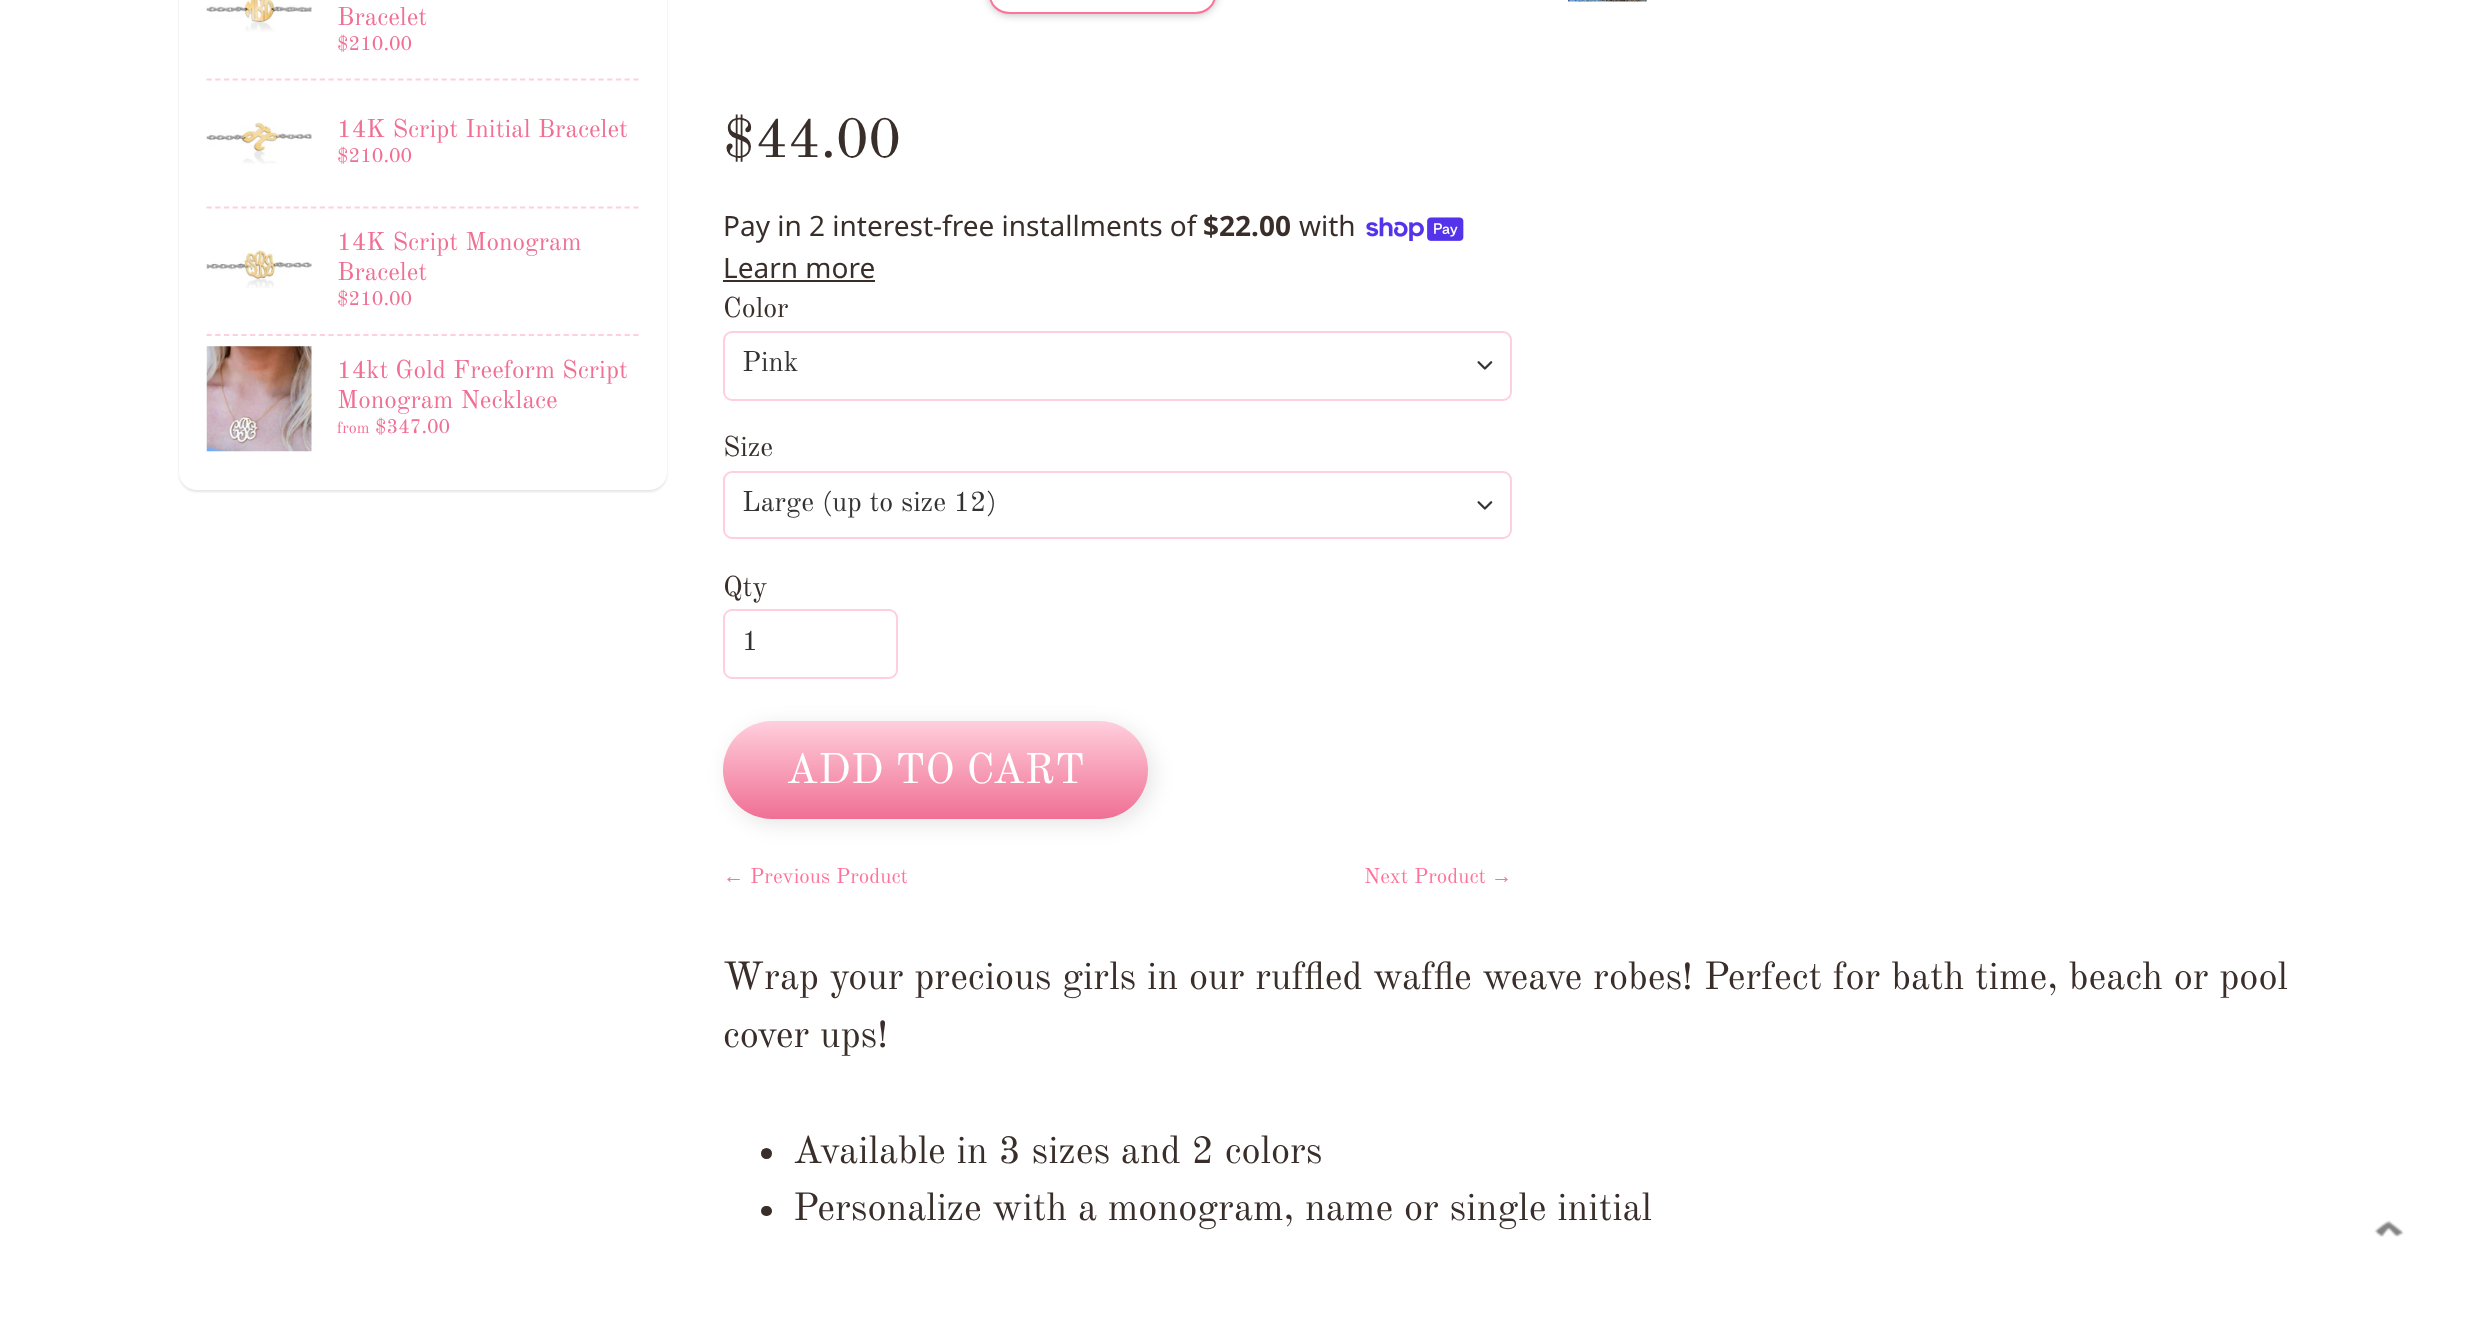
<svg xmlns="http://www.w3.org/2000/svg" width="2479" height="1318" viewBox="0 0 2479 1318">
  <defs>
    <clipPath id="clip1"><path d="M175 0H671V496H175ZM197-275H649C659-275 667-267 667-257V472C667 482 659 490 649 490H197C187 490 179 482 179 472V-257C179-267 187-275 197-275Z" clip-rule="evenodd"/></clipPath>
    <linearGradient id="g1" gradientUnits="userSpaceOnUse" x1="935" y1="721" x2="935" y2="819"><stop offset="0" stop-color="rgb(255,207,221)"/><stop offset="1" stop-color="rgb(240,111,147)"/></linearGradient>
  </defs>
  <rect width="100%" height="100%" fill="rgb(255,255,255)"/>
  <g clip-path="url(#clip1)">
    <rect x="179" y="-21" width="488" height="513" rx="18" fill="rgba(0,0,0,0.1)" filter="blur(1px)"/>
  </g>
  <image x="206" y="0" width="106" height="32" href="pic1.png"/>
  <text x="337" y="25" font-family="Old Standard TT" font-size="25.25" fill="rgb(240,111,147)">Bracelet</text>
  <text x="337" y="50" font-family="Old Standard TT" font-size="20" fill="rgb(240,111,147)">$210.00</text>
  <path d="M206.5 79.5H639" fill="none" stroke="rgb(255,207,221)" stroke-width="1.8" stroke-dasharray="5.25 3.46"/>
  <image x="206" y="122" width="106" height="42" href="pic2.png"/>
  <text x="337" y="137" font-family="Old Standard TT" font-size="25.25" fill="rgb(240,111,147)">14K Script Initial Bracelet</text>
  <text x="337" y="162" font-family="Old Standard TT" font-size="20" fill="rgb(240,111,147)">$210.00</text>
  <path d="M206.5 207.5H639" fill="none" stroke="rgb(255,207,221)" stroke-width="1.8" stroke-dasharray="5.25 3.46"/>
  <image x="206" y="249" width="106" height="39" href="pic3.png"/>
  <g font-family="Old Standard TT" font-size="25.25" fill="rgb(240,111,147)">
    <text>
      <tspan x="337" y="250">14K Script Monogram</tspan>
      <tspan x="337" y="280">Bracelet</tspan>
    </text>
  </g>
  <text x="337" y="305" font-family="Old Standard TT" font-size="20" fill="rgb(240,111,147)">$210.00</text>
  <path d="M206.5 335H639" fill="none" stroke="rgb(255,207,221)" stroke-width="1.8" stroke-dasharray="5.25 3.46"/>
  <image x="206" y="346" width="106" height="106" href="pic4.png"/>
  <g font-family="Old Standard TT" font-size="25.25" fill="rgb(240,111,147)">
    <text>
      <tspan x="337" y="378">14kt Gold Freeform Script</tspan>
      <tspan x="337" y="408">Monogram Necklace</tspan>
    </text>
  </g>
  <text x="337" y="433" font-family="Old Standard TT" font-size="16" fill="rgb(240,111,147)">from</text>
  <text x="375" y="433" font-family="Old Standard TT" font-size="20" fill="rgb(240,111,147)">$347.00</text>
  <rect x="989" y="-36" width="227" height="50" rx="21" fill="rgba(0,0,0,0.3)" filter="blur(5px)"/>
  <rect x="990" y="-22" width="225" height="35" rx="20" fill="rgb(255,255,255)" stroke="rgb(255,115,154)" stroke-width="2"/>
  <image x="1106" y="0" width="1" height="2" href="pic5.png"/>
  <image x="1568" y="0" width="79" height="2" href="pic6.png"/>
  <text x="723" y="157" font-family="Old Standard TT" font-size="56" fill="rgb(57,46,42)">$44.00</text>
  <text x="723" y="236" font-family="Noto Sans" font-size="28" fill="rgb(57,46,42)">Pay in 2 interest-free installments of</text>
  <text x="1203" y="236" font-family="Noto Sans" font-size="28" font-weight="bold" fill="rgb(57,46,42)">$22.00</text>
  <text x="1299" y="236" font-family="Noto Sans" font-size="28" fill="rgb(57,46,42)">with</text>
  <image x="1366" y="217" width="98" height="24" href="pic7.png"/>
  <text x="723" y="278" font-family="Noto Sans" font-size="28" fill="rgb(57,46,42)">Learn more</text>
  <rect x="723" y="280" width="152" height="2" fill="rgb(57,46,42)"/>
  <text x="723" y="317" font-family="Old Standard TT" font-size="28" fill="rgb(57,46,42)">Color</text>
  <image x="1477" y="361" width="16" height="9" href="pic8.png"/>
  <rect x="724" y="332" width="787" height="68" rx="8" fill="none" stroke="rgb(255,207,221)" stroke-width="2"/>
  <text x="742" y="371" font-family="Old Standard TT" font-size="28" fill="rgb(51,51,51)">Pink</text>
  <text x="723" y="456" font-family="Old Standard TT" font-size="28" fill="rgb(57,46,42)">Size</text>
  <image x="1477" y="501" width="16" height="9" href="pic8.png"/>
  <rect x="724" y="472" width="787" height="66" rx="8" fill="none" stroke="rgb(255,207,221)" stroke-width="2"/>
  <text x="742" y="511" font-family="Old Standard TT" font-size="28" fill="rgb(51,51,51)">Large (up to size 12)</text>
  <text x="723" y="596" font-family="Old Standard TT" font-size="28" fill="rgb(57,46,42)">Qty</text>
  <rect x="724" y="610" width="173" height="68" rx="8" fill="none" stroke="rgb(255,207,221)" stroke-width="2"/>
  <text x="742" y="650" font-family="Old Standard TT" font-size="28" fill="rgb(51,51,51)">1</text>
  <rect x="728" y="726" width="425" height="98" rx="49" fill="rgba(0,0,0,0.1)" filter="blur(10.5px)"/>
  <rect x="723" y="721" width="425" height="98" rx="49" fill="url(#g1)"/>
  <text x="786" y="783" font-family="Old Standard TT" font-size="42" fill="rgb(255,255,255)">ADD TO CART</text>
  <text x="723" y="883" font-family="Liberation Serif" font-size="21" fill="rgb(255,115,154)">←</text>
  <g font-family="Old Standard TT" font-size="21" fill="rgb(255,115,154)">
    <text x="750" y="883">Previous Product</text>
    <text x="1364" y="883">Next Product</text>
  </g>
  <text x="1491" y="883" font-family="Liberation Serif" font-size="21" fill="rgb(255,115,154)">→</text>
  <g font-family="Old Standard TT" font-size="38.5" fill="rgb(57,46,42)">
    <text>
      <tspan x="723" y="989">Wrap your precious girls in our ruffled waffle weave robes! Perfect for bath time, beach or pool</tspan>
      <tspan x="723" y="1047">cover ups!</tspan>
    </text>
  </g>
  <circle cx="766.5" cy="1153.5" r="5.5" fill="rgb(57,46,42)"/>
  <text x="793" y="1163" font-family="Old Standard TT" font-size="38.5" fill="rgb(57,46,42)">Available in 3 sizes and 2 colors</text>
  <rect x="761" y="1206" width="11" height="10" rx="5" fill="rgb(57,46,42)"/>
  <text x="793" y="1220" font-family="Old Standard TT" font-size="38.5" fill="rgb(57,46,42)">Personalize with a monogram, name or single initial</text>
  <image x="2374" y="1220" width="30" height="17" href="pic9.png"/>
</svg>
